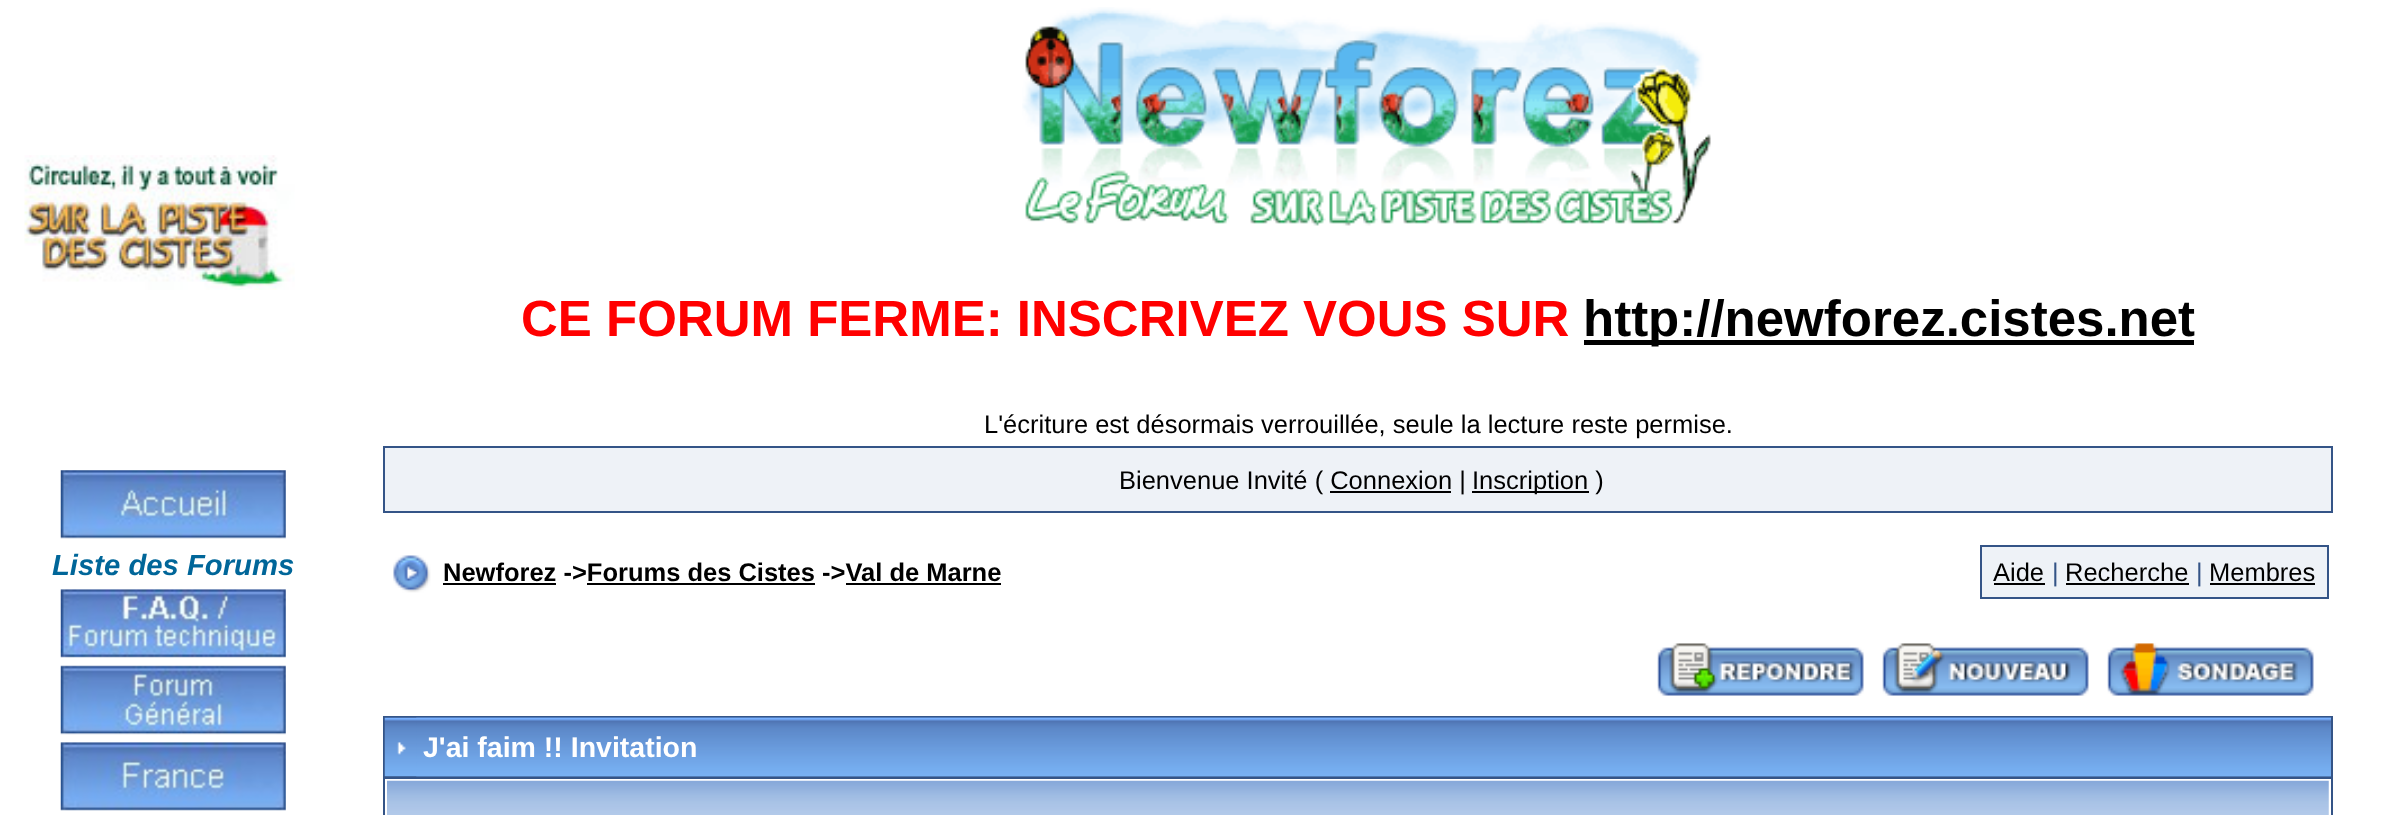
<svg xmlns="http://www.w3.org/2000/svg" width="2391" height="815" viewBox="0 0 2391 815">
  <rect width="100%" height="100%" fill="rgb(255,255,255)"/>
  <image x="24" y="155" width="271" height="135" href="pic1.png"/>
  <image x="1022" y="7" width="689" height="219" href="pic2.png"/>
  <text x="521" y="336" font-family="Liberation Sans" font-size="51" font-weight="bold" fill="rgb(255,0,0)">CE FORUM FERME: INSCRIVEZ VOUS SUR</text>
  <rect x="1584" y="340" width="610" height="5" fill="rgb(0,0,0)"/>
  <text x="1583" y="336" font-family="Liberation Sans" font-size="51" font-weight="bold" fill="rgb(0,0,0)">http://newforez.cistes.net</text>
  <text x="984" y="433" font-family="Liberation Sans" font-size="25.5" fill="rgb(0,0,0)">L'écriture est désormais verrouillée, seule la lecture reste permise.</text>
  <image x="60" y="470" width="226" height="69" href="pic3.png"/>
  <text x="52" y="575" font-family="Liberation Sans" font-size="29.25" font-weight="bold" font-style="italic" fill="rgb(0,102,153)">Liste des Forums</text>
  <image x="60" y="589" width="226" height="69" href="pic4.png"/>
  <image x="60" y="665" width="226" height="70" href="pic5.png"/>
  <image x="60" y="742" width="226" height="69" href="pic6.png"/>
  <rect x="383" y="446" width="1950" height="67" fill="rgb(52,84,135)"/>
  <rect x="385" y="448" width="1946" height="63" fill="rgb(238,242,247)"/>
  <text x="1119" y="489" font-family="Liberation Sans" font-size="25.5" fill="rgb(0,0,0)">Bienvenue Invité ( Connexion |</text>
  <rect x="1472" y="491" width="117" height="2" fill="rgb(0,0,0)"/>
  <text x="1472" y="489" font-family="Liberation Sans" font-size="25.5" fill="rgb(0,0,0)">Inscription )</text>
  <rect x="1330" y="491" width="121" height="2" fill="rgb(0,0,0)"/>
  <image x="393" y="555" width="38" height="38" href="pic7.png"/>
  <text x="443" y="581" font-family="Liberation Sans" font-size="25.5" font-weight="bold" fill="rgb(0,0,0)">Newforez -&gt;Forums des Cistes -&gt;Val de Marne</text>
  <rect x="443" y="583" width="113" height="2" fill="rgb(0,0,0)"/>
  <rect x="587" y="583" width="228" height="2" fill="rgb(0,0,0)"/>
  <rect x="846" y="583" width="155" height="2" fill="rgb(0,0,0)"/>
  <rect x="1981" y="546" width="347" height="52" fill="rgb(238,242,247)" stroke="rgb(52,84,135)" stroke-width="2"/>
  <text x="1993" y="581" font-family="Liberation Sans" font-size="25.5" fill="rgb(0,0,0)">Aide</text>
  <rect x="1994" y="583" width="51" height="2" fill="rgb(0,0,0)"/>
  <text x="2052" y="581" font-family="Liberation Sans" font-size="25.5" fill="rgb(52,84,135)">|</text>
  <text x="2065" y="581" font-family="Liberation Sans" font-size="25.5" fill="rgb(0,0,0)">Recherche</text>
  <rect x="2066" y="583" width="123" height="2" fill="rgb(0,0,0)"/>
  <text x="2196" y="581" font-family="Liberation Sans" font-size="25.5" fill="rgb(52,84,135)">|</text>
  <text x="2209" y="581" font-family="Liberation Sans" font-size="25.5" fill="rgb(0,0,0)">Membres</text>
  <rect x="2210" y="583" width="105" height="2" fill="rgb(0,0,0)"/>
  <image x="1657" y="643" width="207" height="53" href="pic8.png"/>
  <image x="1882" y="643" width="207" height="53" href="pic9.png"/>
  <image x="2107" y="643" width="207" height="53" href="pic10.png"/>
  <rect x="383" y="716" width="1950" height="99" fill="rgb(52,84,135)"/>
  <image x="384" y="717" width="1947" height="60" href="pic11.png"/>
  <image x="397" y="742" width="9" height="13" href="pic12.png"/>
  <image x="416" y="717" width="1915" height="60" href="pic13.png"/>
  <text x="423" y="757" font-family="Liberation Sans" font-size="28.5" font-weight="bold" fill="rgb(255,255,255)">J'ai faim !! Invitation</text>
  <rect x="385" y="779" width="1946" height="36" fill="rgb(255,255,255)"/>
  <image x="387" y="780" width="1942" height="35" href="pic14.png"/>
</svg>
